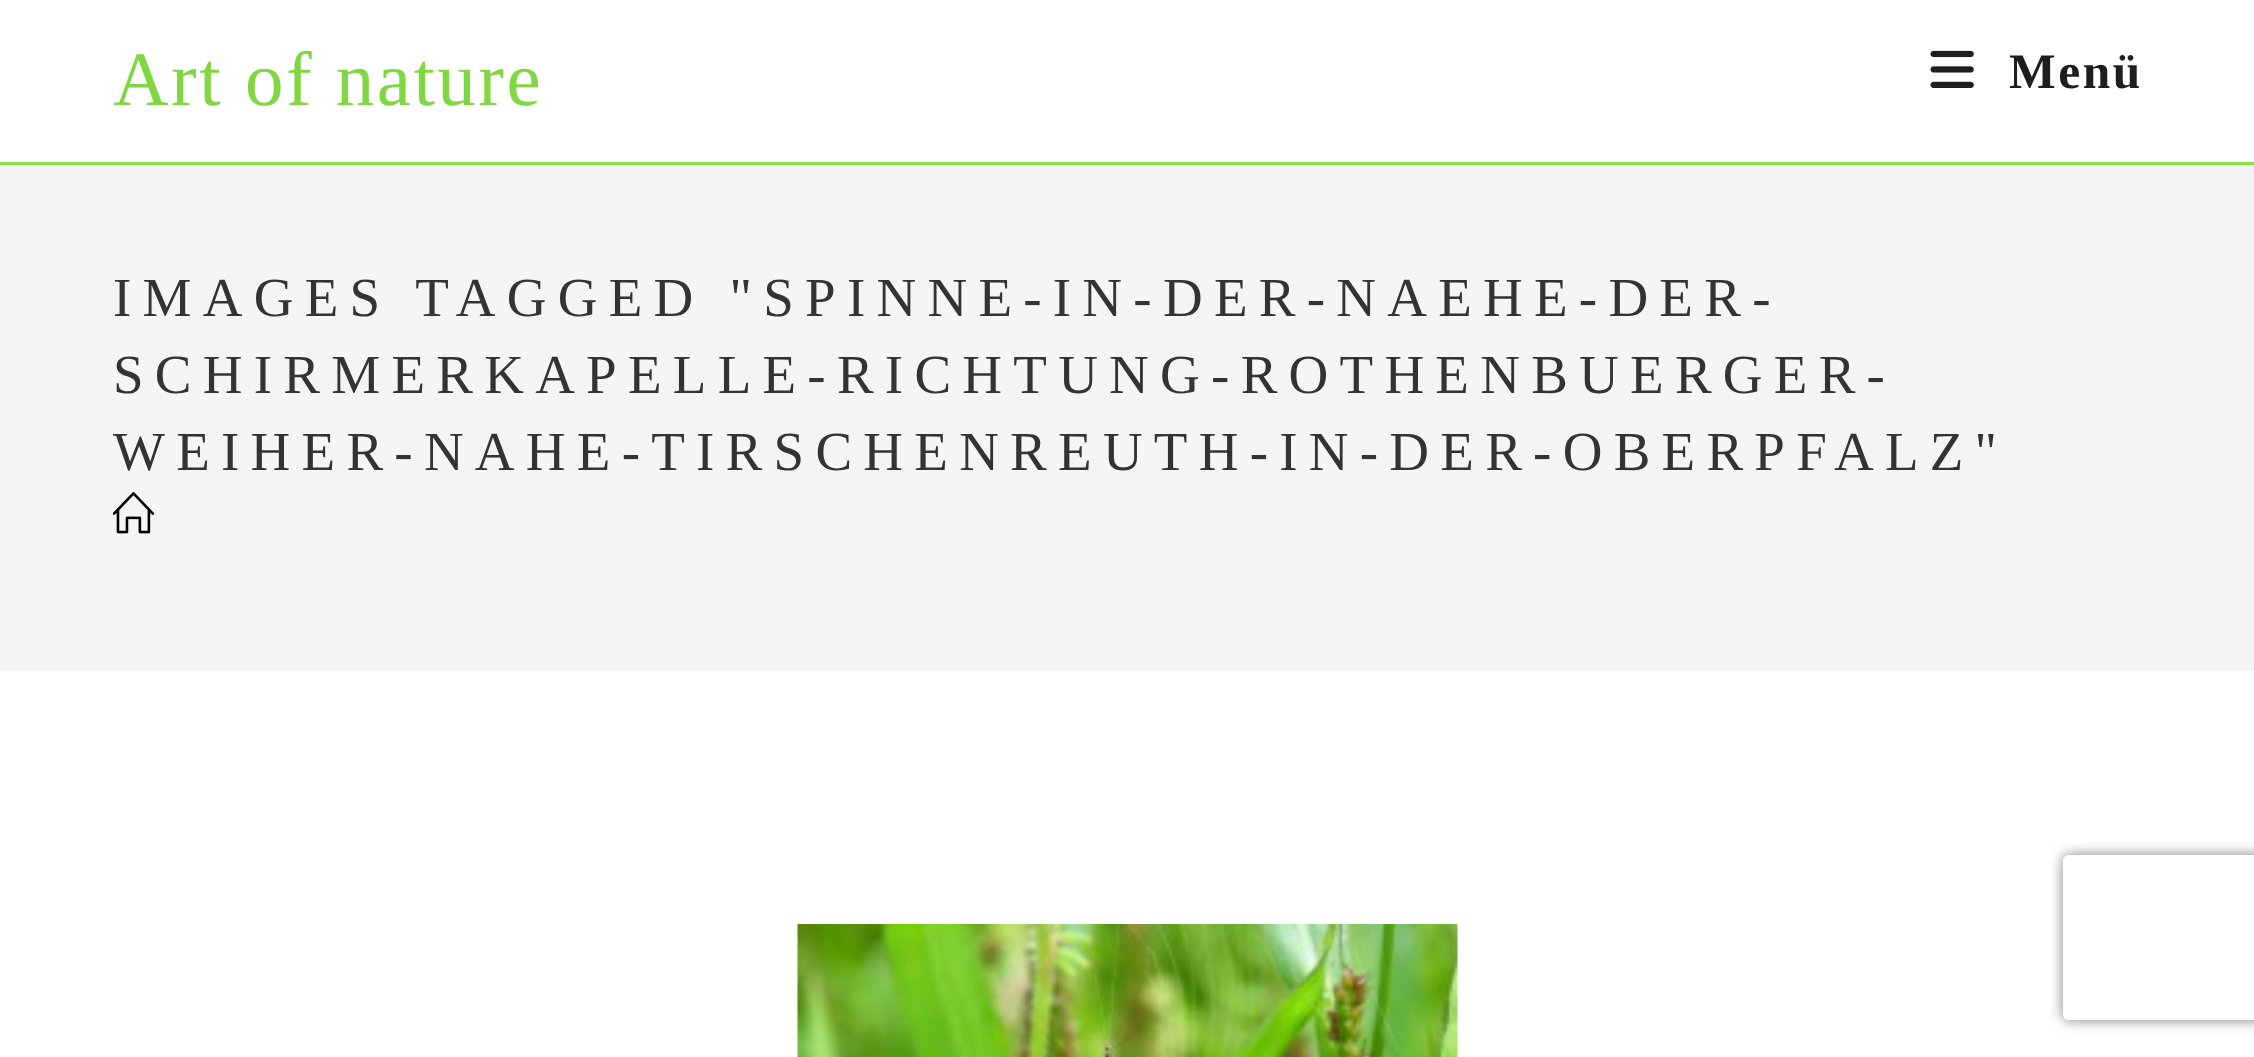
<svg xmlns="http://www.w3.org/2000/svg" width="2254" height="1057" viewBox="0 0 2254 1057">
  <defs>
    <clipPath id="clip1"><path d="M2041 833H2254V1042H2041ZM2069 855H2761C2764.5 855 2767 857.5 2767 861V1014C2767 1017.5 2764.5 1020 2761 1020H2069C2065.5 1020 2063 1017.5 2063 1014V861C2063 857.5 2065.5 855 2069 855Z" clip-rule="evenodd"/></clipPath>
  </defs>
  <rect width="100%" height="100%" fill="rgb(255,255,255)"/>
  <rect x="0" y="162" width="2254" height="3" fill="rgb(135,226,70)"/>
  <text x="113" y="105" font-family="Liberation Serif" font-size="77" letter-spacing="2.5" fill="rgb(129,215,66)">Art of nature</text>
  <image x="1930" y="50" width="44" height="38" href="pic1.png"/>
  <text x="2009" y="88" font-family="Liberation Serif" font-size="49.5" font-weight="bold" letter-spacing="2.5" fill="rgb(30,30,30)">Menü</text>
  <rect x="0" y="165" width="2254" height="506" fill="rgb(245,245,245)"/>
  <g font-family="Liberation Serif" font-size="55" letter-spacing="11.25" fill="rgb(51,51,51)">
    <text>
      <tspan x="113" y="316">IMAGES TAGGED "SPINNE-IN-DER-NAEHE-DER-</tspan>
      <tspan x="113" y="393">SCHIRMERKAPELLE-RICHTUNG-ROTHENBUERGER-</tspan>
      <tspan x="113" y="470">WEIHER-NAHE-TIRSCHENREUTH-IN-DER-OBERPFALZ"</tspan>
    </text>
  </g>
  <image x="113" y="492" width="42" height="42" href="pic2.png"/>
  <image x="797" y="924" width="661" height="133" href="pic3.png"/>
  <g clip-path="url(#clip1)">
    <rect x="2063" y="855" width="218" height="165" rx="6" fill="rgb(128,128,128)" filter="blur(7px)"/>
  </g>
</svg>
